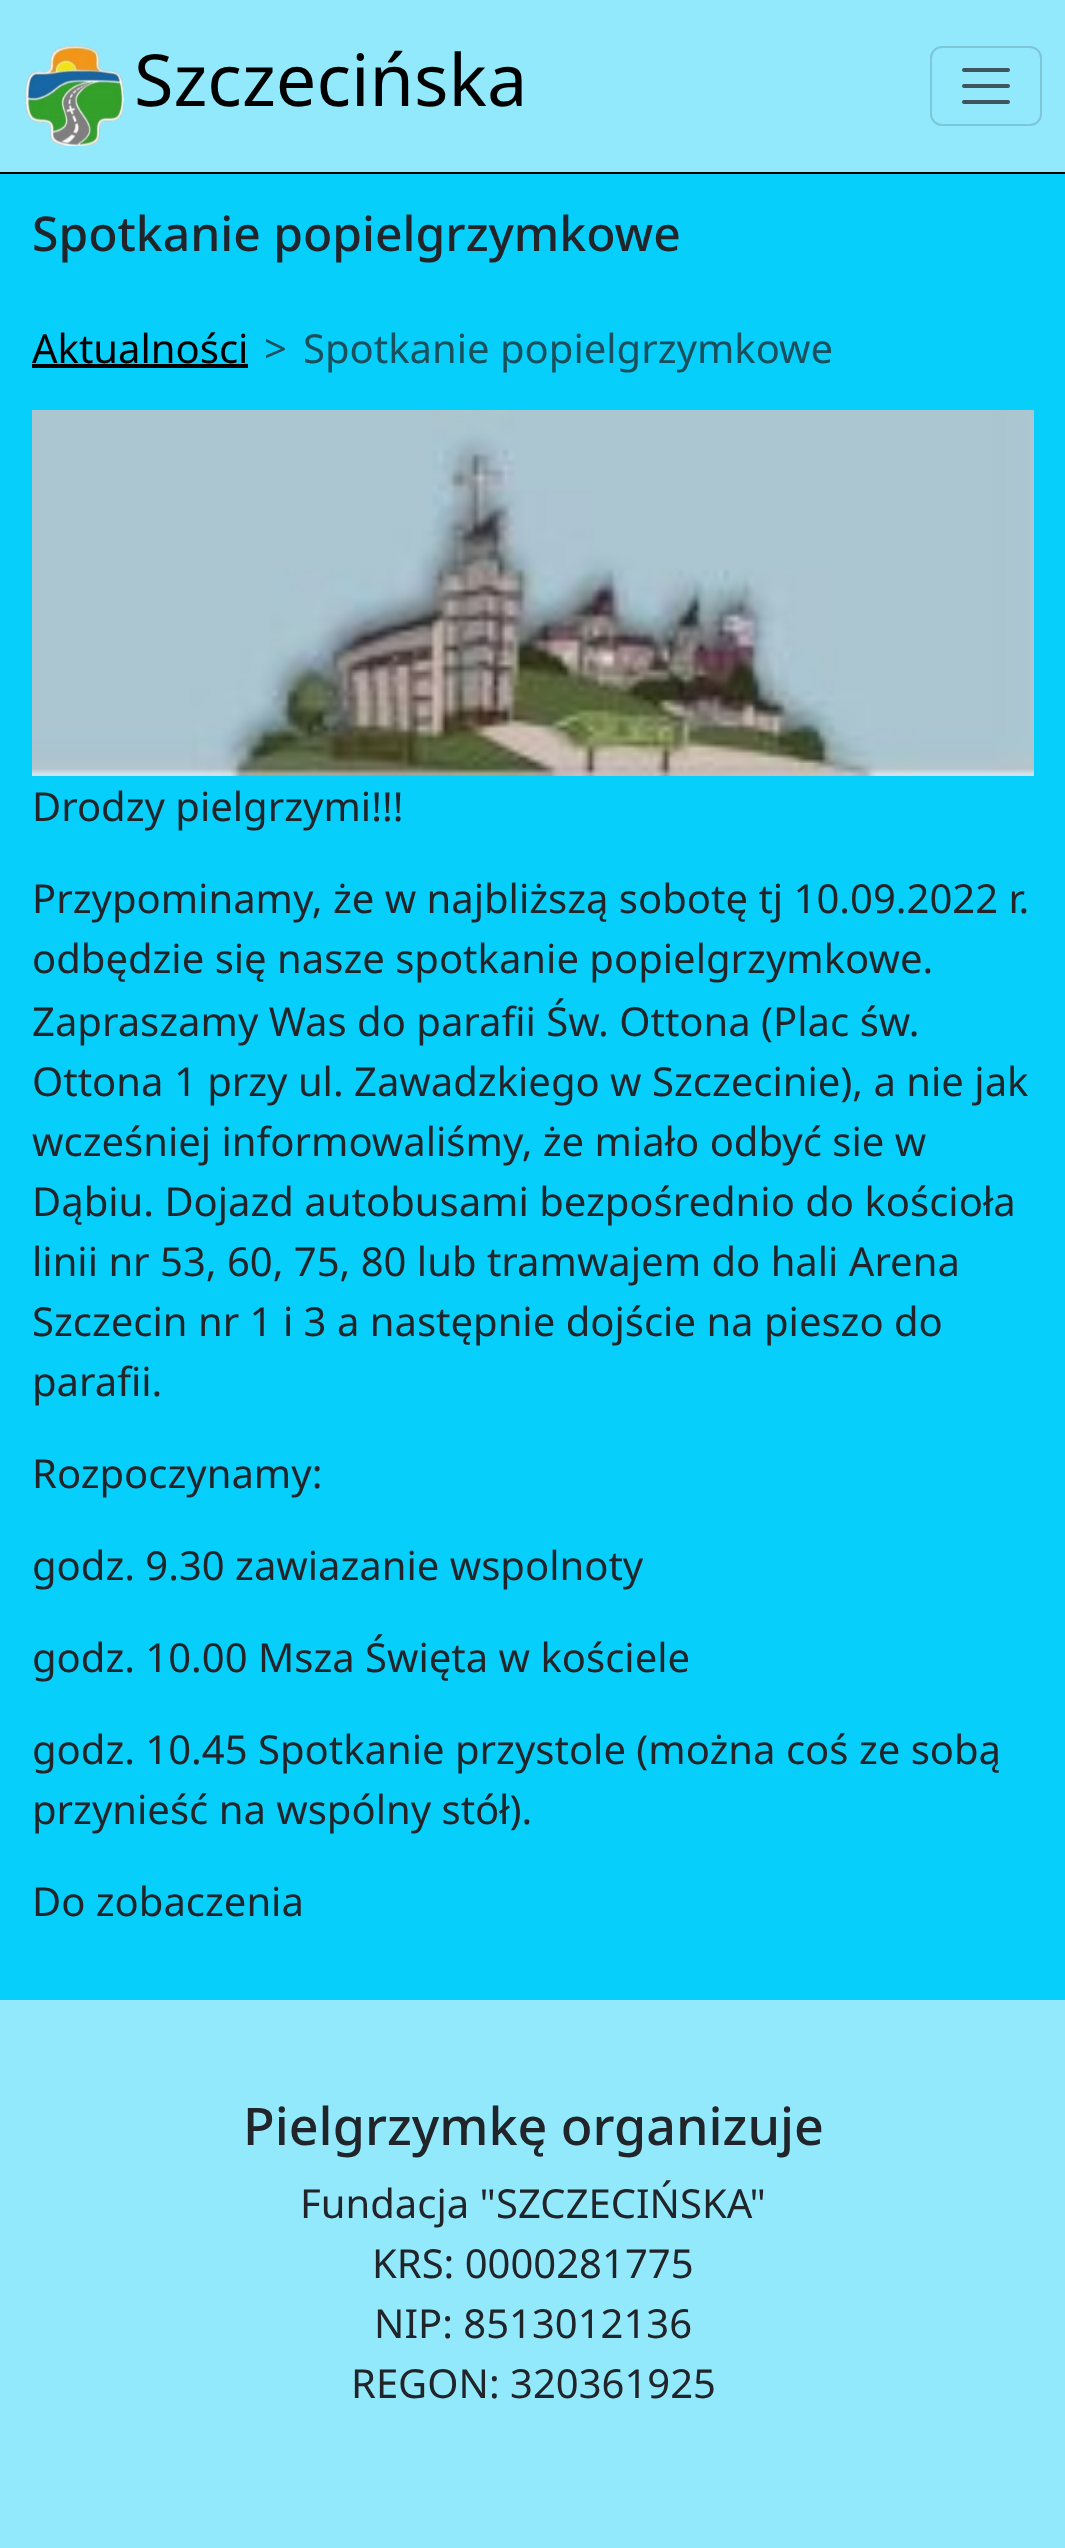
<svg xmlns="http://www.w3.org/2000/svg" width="1065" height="2548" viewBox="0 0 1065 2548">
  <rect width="100%" height="100%" fill="rgb(6,207,252)"/>
  <rect x="0" y="0" width="1065" height="172" fill="rgb(146,233,252)"/>
  <rect x="0" y="172" width="1065" height="2" fill="rgb(0,0,0)"/>
  <image x="24" y="45" width="100" height="101" href="pic1.png"/>
  <text x="134" y="106" font-family="Noto Sans" font-size="72" fill="rgb(0,0,0)">Szczecińska</text>
  <rect x="931" y="47" width="110" height="78" rx="11" fill="none" stroke="rgb(124,198,214)" stroke-width="2"/>
  <path d="M964 70H1008M964 86H1008M964 102H1008" fill="none" stroke="rgb(61,86,94)" stroke-width="4" stroke-linecap="round"/>
  <text x="32" y="251" font-family="Noto Sans" font-size="48" font-weight="500" fill="rgb(33,37,41)">Spotkanie popielgrzymkowe</text>
  <text x="32" y="363" font-family="Noto Sans" font-size="40" fill="rgb(0,0,0)">Aktualności</text>
  <rect x="32" y="364" width="216" height="4" fill="rgb(0,0,0)"/>
  <g font-family="Noto Sans" font-size="40" fill="rgb(26,80,94)">
    <text x="264" y="363">&gt;</text>
    <text x="303" y="363">Spotkanie popielgrzymkowe</text>
  </g>
  <image x="32" y="410" width="1002" height="366" href="pic2.png"/>
  <g font-family="Noto Sans" font-size="40" fill="rgb(33,37,41)">
    <text x="32" y="821">Drodzy pielgrzymi!!!</text>
    <text>
      <tspan x="32" y="913">Przypominamy, że w najbliższą sobotę tj 10.09.2022 r.</tspan>
      <tspan x="32" y="973">odbędzie się nasze spotkanie popielgrzymkowe.</tspan>
      <tspan x="32" y="1036">Zapraszamy Was do parafii Św. Ottona (Plac św.</tspan>
      <tspan x="32" y="1096">Ottona 1 przy ul. Zawadzkiego w Szczecinie), a nie jak</tspan>
      <tspan x="32" y="1156">wcześniej informowaliśmy, że miało odbyć sie w</tspan>
      <tspan x="32" y="1216">Dąbiu. Dojazd autobusami bezpośrednio do kościoła</tspan>
      <tspan x="32" y="1276">linii nr 53, 60, 75, 80 lub tramwajem do hali Arena</tspan>
      <tspan x="32" y="1336">Szczecin nr 1 i 3 a następnie dojście na pieszo do</tspan>
      <tspan x="32" y="1396">parafii.</tspan>
    </text>
    <text x="32" y="1488">Rozpoczynamy:</text>
    <text x="32" y="1580">godz. 9.30 zawiazanie wspolnoty</text>
    <text x="32" y="1672">godz. 10.00 Msza Święta w kościele</text>
    <text>
      <tspan x="32" y="1764">godz. 10.45 Spotkanie przystole (można coś ze sobą</tspan>
      <tspan x="32" y="1824">przynieść na wspólny stół).</tspan>
    </text>
    <text x="32" y="1916">Do zobaczenia</text>
  </g>
  <rect x="0" y="2000" width="1065" height="548" fill="rgb(146,233,252)"/>
  <text x="243" y="2145" font-family="Noto Sans" font-size="52" font-weight="500" fill="rgb(33,37,41)">Pielgrzymkę organizuje</text>
  <g font-family="Noto Sans" font-size="40" fill="rgb(33,37,41)">
    <text x="300" y="2218">Fundacja "SZCZECIŃSKA"</text>
    <text x="372" y="2278">KRS: 0000281775</text>
    <text x="374" y="2338">NIP: 8513012136</text>
    <text x="351" y="2398">REGON: 320361925</text>
  </g>
</svg>
